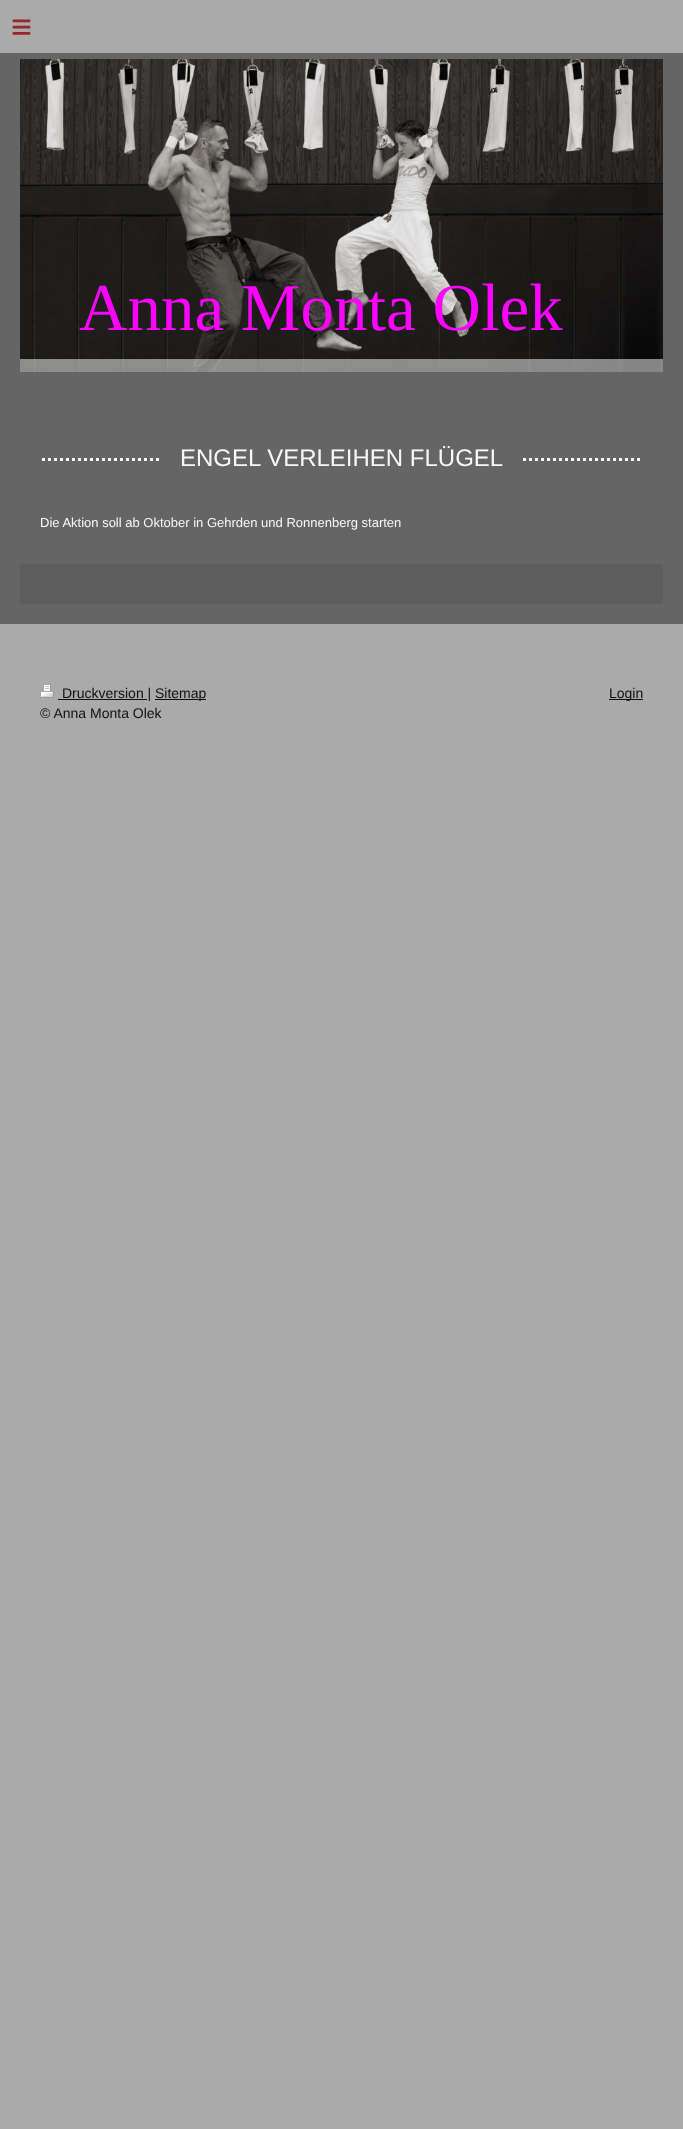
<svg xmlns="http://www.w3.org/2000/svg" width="683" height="2129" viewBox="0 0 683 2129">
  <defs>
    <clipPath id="clip1"><rect x="40" y="438" width="603" height="40"/></clipPath>
  </defs>
  <rect width="100%" height="100%" fill="rgb(170,170,170)"/>
  <text x="11" y="39" font-family="Liberation Sans" font-size="36" letter-spacing="10" fill="rgb(151,39,40)">≡</text>
  <rect x="0" y="53" width="683" height="571" fill="rgb(101,101,101)"/>
  <image x="20" y="59" width="643" height="313" href="pic1.png"/>
  <text x="79" y="330" font-family="Liberation Serif" font-size="67" fill="rgb(249,5,251)">Anna Monta Olek</text>
  <rect x="20" y="359" width="643" height="13" fill="rgba(255,255,255,0.5)"/>
  <g clip-path="url(#clip1)">
    <path d="M-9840 459.5H160" fill="none" stroke="rgb(247,247,247)" stroke-width="3" stroke-dasharray="3 3"/>
  </g>
  <text x="180" y="466" font-family="Liberation Sans" font-size="24" fill="rgb(247,247,247)">ENGEL VERLEIHEN FLÜGEL</text>
  <g clip-path="url(#clip1)">
    <path d="M523 459.5H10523" fill="none" stroke="rgb(247,247,247)" stroke-width="3" stroke-dasharray="3 3"/>
  </g>
  <text x="40" y="527" font-family="Liberation Sans" font-size="13" fill="rgb(247,247,247)">Die Aktion soll ab Oktober in Gehrden und Ronnenberg starten</text>
  <rect x="20" y="564" width="643" height="40" fill="rgb(93,93,93)"/>
  <image x="40" y="684" width="14" height="14" href="pic2.png"/>
  <rect x="58" y="699" width="89" height="1" fill="rgb(17,17,17)"/>
  <text x="62" y="698" font-family="Liberation Sans" font-size="14" fill="rgb(17,17,17)">Druckversion |</text>
  <rect x="155" y="699" width="51" height="1" fill="rgb(17,17,17)"/>
  <g font-family="Liberation Sans" font-size="14" fill="rgb(17,17,17)">
    <text x="155" y="698">Sitemap</text>
    <text x="40" y="718">© Anna Monta Olek</text>
  </g>
  <rect x="609" y="699" width="34" height="1" fill="rgb(17,17,17)"/>
  <text x="609" y="698" font-family="Liberation Sans" font-size="14" fill="rgb(17,17,17)">Login</text>
</svg>
